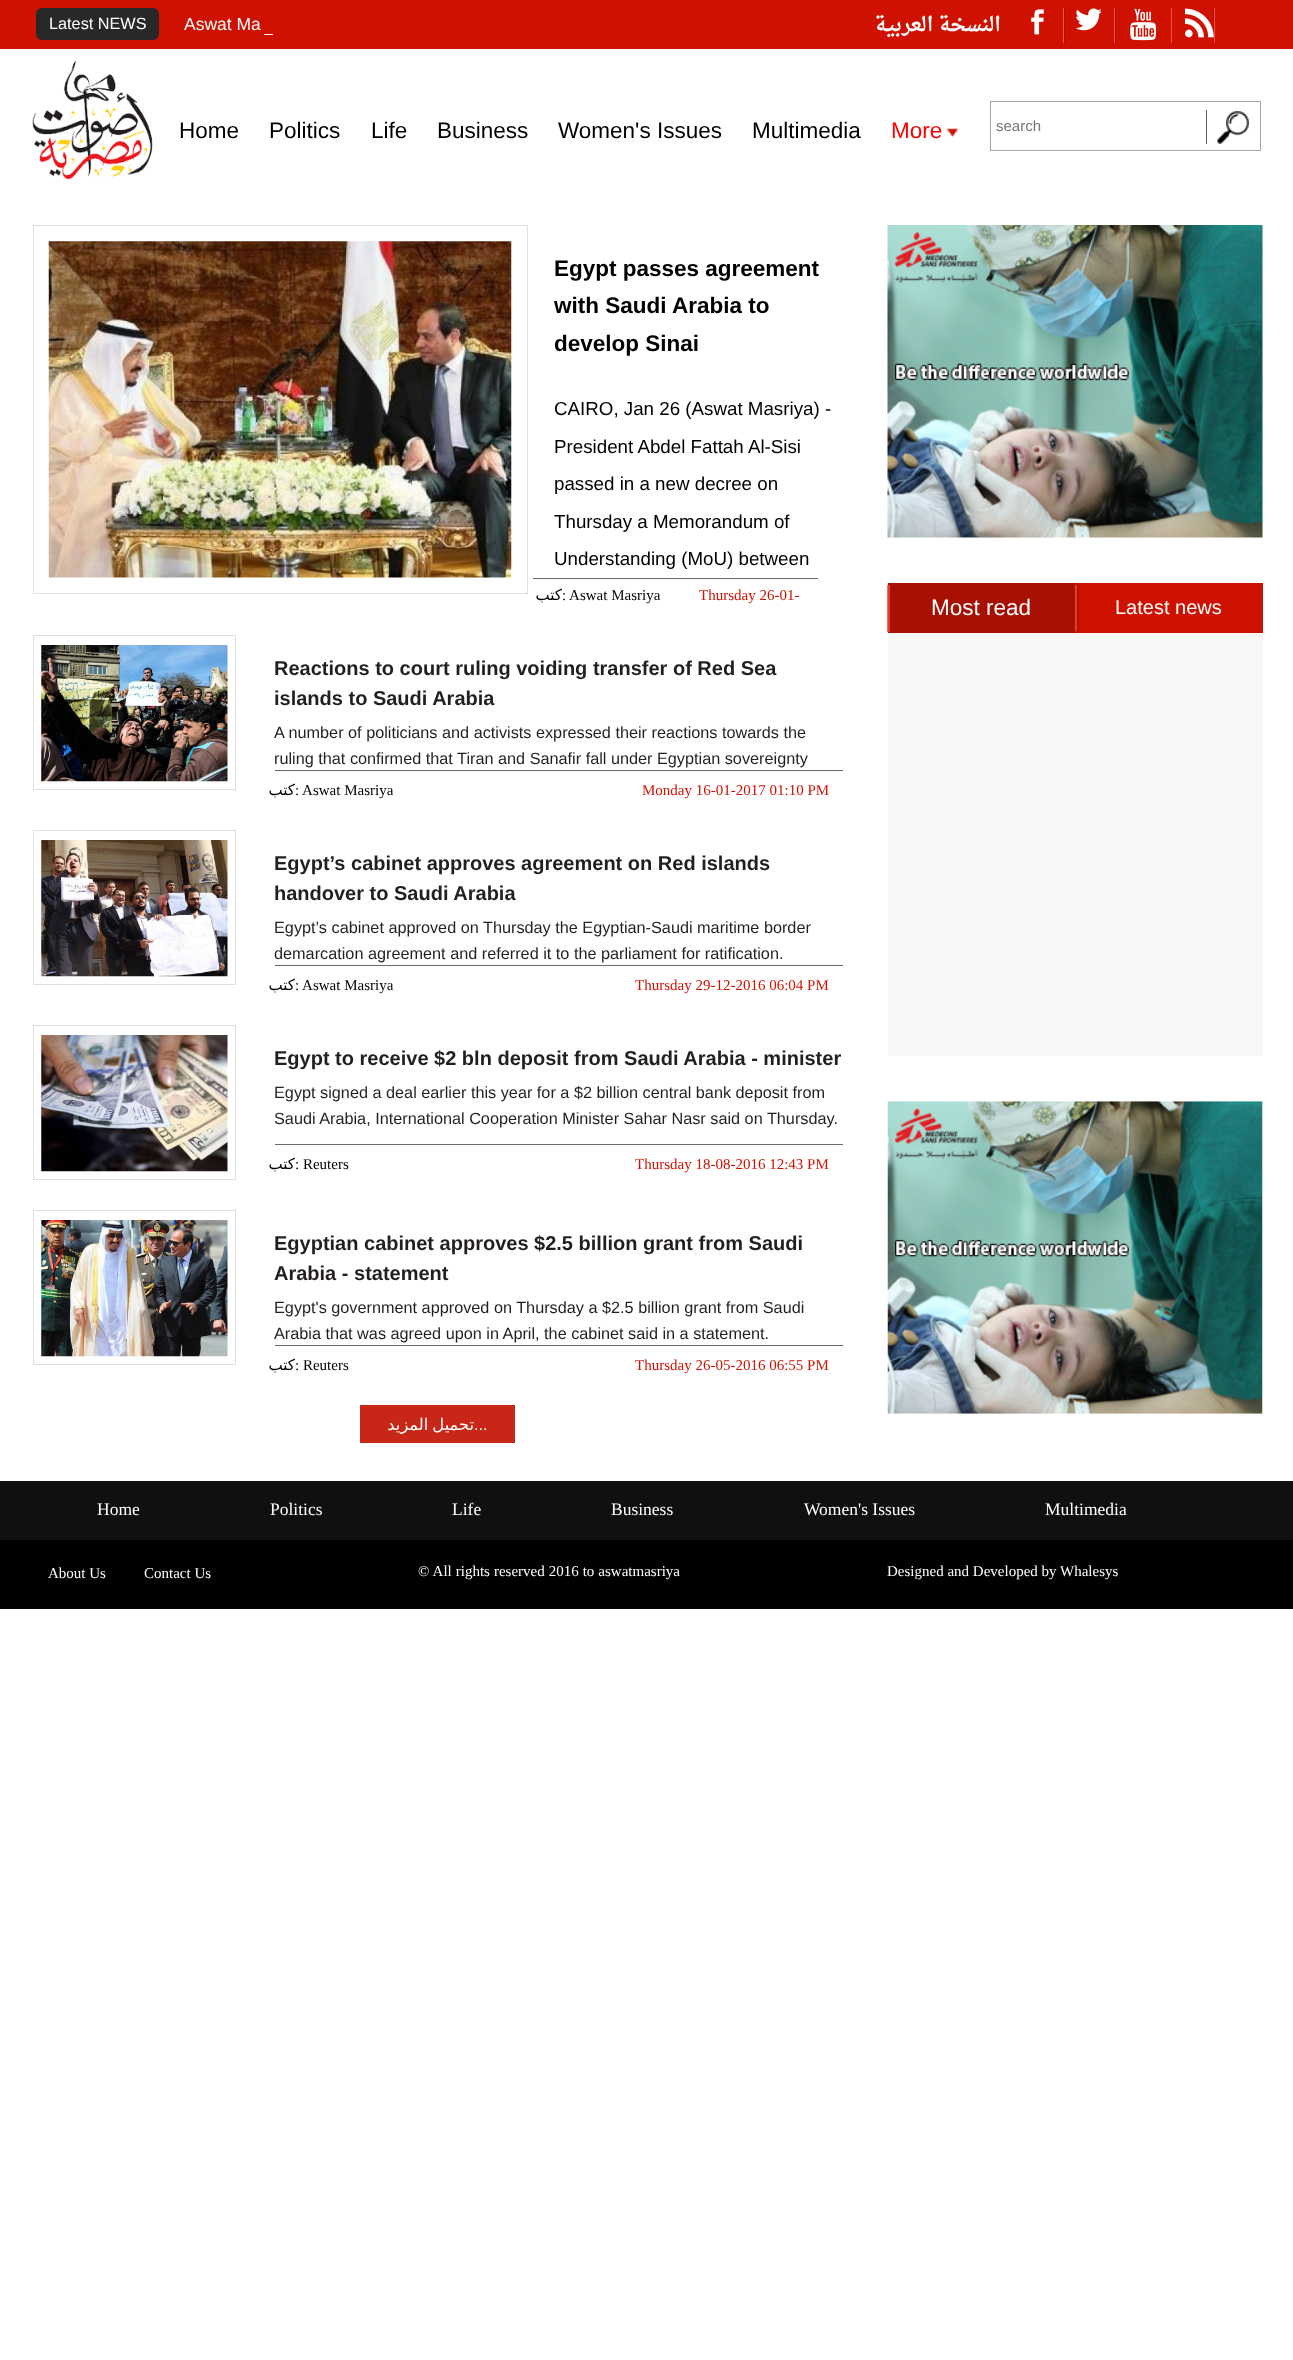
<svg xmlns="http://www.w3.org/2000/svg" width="1293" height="2360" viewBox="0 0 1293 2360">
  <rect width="100%" height="100%" fill="rgb(255,255,255)"/>
  <rect x="0" y="0" width="1293" height="49" fill="rgb(206,17,0)"/>
  <rect x="36" y="8" width="123" height="32" rx="6" fill="rgb(40,40,40)"/>
  <text x="49" y="29" font-family="Liberation Sans" font-size="16.25" fill="rgb(255,255,255)">Latest NEWS</text>
  <text x="184" y="30" font-family="Liberation Sans" font-size="17.5" fill="rgb(255,255,255)">Aswat Ma</text>
  <rect x="264" y="34" width="9" height="1" fill="rgb(255,255,255)"/>
  <text x="1001" y="31" font-family="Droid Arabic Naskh" font-size="20" font-weight="bold" direction="rtl" fill="rgb(255,255,255)">النسخة العربية</text>
  <image x="1031" y="9" width="13" height="26" href="pic1.png"/>
  <rect x="1064" y="8" width="1" height="35" fill="rgb(173,16,2)"/>
  <rect x="1063" y="8" width="1" height="35" fill="rgb(250,80,65)"/>
  <image x="1076" y="8" width="26" height="23" href="pic2.png"/>
  <rect x="1115" y="8" width="1" height="35" fill="rgb(173,16,2)"/>
  <rect x="1114" y="8" width="1" height="35" fill="rgb(250,80,65)"/>
  <image x="1130" y="8" width="27" height="33" href="pic3.png"/>
  <rect x="1213" y="8" width="1" height="35" fill="rgb(173,16,2)"/>
  <rect x="1214" y="8" width="1" height="35" fill="rgb(250,80,65)"/>
  <rect x="1171" y="8" width="1" height="35" fill="rgb(250,80,65)"/>
  <image x="1185" y="8" width="29" height="30" href="pic4.png"/>
  <image x="32" y="61" width="121" height="119" href="pic5.png"/>
  <g font-family="Liberation Sans" font-size="22.5" fill="rgb(0,0,0)">
    <text x="179" y="138">Home</text>
    <text x="269" y="138">Politics</text>
    <text x="371" y="138">Life</text>
    <text x="437" y="138">Business</text>
    <text x="558" y="138">Women's Issues</text>
    <text x="752" y="138">Multimedia</text>
  </g>
  <image x="947" y="128" width="11" height="9" href="pic6.png"/>
  <text x="891" y="138" font-family="Liberation Sans" font-size="22.5" fill="rgb(255,0,0)">More</text>
  <rect x="990.5" y="101.5" width="270" height="49" fill="none" stroke="rgb(166,165,165)"/>
  <text x="996" y="131" font-family="Liberation Sans" font-size="15" fill="rgb(117,117,117)">search</text>
  <image x="1217" y="111" width="32" height="33" href="pic7.png"/>
  <rect x="1206" y="110" width="1" height="34" fill="rgb(96,96,96)"/>
  <rect x="33.5" y="225.5" width="494" height="368" fill="none" stroke="rgb(223,223,223)"/>
  <image x="48" y="241" width="464" height="337" href="pic8.png"/>
  <g font-family="Liberation Sans" font-size="22.5" font-weight="bold" fill="rgb(0,0,0)">
    <text>
      <tspan x="554" y="276">Egypt passes agreement</tspan>
      <tspan x="554" y="313">with Saudi Arabia to</tspan>
      <tspan x="554" y="351">develop Sinai</tspan>
    </text>
  </g>
  <g font-family="Liberation Sans" font-size="18.75" fill="rgb(0,0,0)">
    <text x="554" y="415">CAIRO, Jan 26 (Aswat Masriya) -</text>
    <text>
      <tspan x="554" y="453">President Abdel Fattah Al-Sisi</tspan>
      <tspan x="554" y="490">passed in a new decree on</tspan>
    </text>
    <text>
      <tspan x="554" y="528">Thursday a Memorandum of</tspan>
      <tspan x="554" y="565">Understanding (MoU) between</tspan>
    </text>
  </g>
  <rect x="533" y="578" width="285" height="1" fill="rgb(107,107,107)"/>
  <text x="562" y="600" font-family="DejaVu Sans" font-size="15" direction="rtl" fill="rgb(0,0,0)">كتب</text>
  <text x="562" y="600" font-family="Liberation Serif" font-size="15" fill="rgb(0,0,0)">: Aswat Masriya</text>
  <text x="699" y="600" font-family="Liberation Serif" font-size="15" fill="rgb(206,17,0)">Thursday 26-01-</text>
  <rect x="33.5" y="635.5" width="202" height="154" fill="none" stroke="rgb(223,223,223)"/>
  <image x="41" y="645" width="187" height="137" href="pic9.png"/>
  <rect x="275" y="770" width="568" height="1" fill="rgb(107,107,107)"/>
  <g font-family="Liberation Sans" font-size="20" font-weight="bold" fill="rgb(35,31,32)">
    <text>
      <tspan x="274" y="675">Reactions to court ruling voiding transfer of Red Sea</tspan>
      <tspan x="274" y="705">islands to Saudi Arabia</tspan>
    </text>
  </g>
  <g font-family="Liberation Sans" font-size="16.25" fill="rgb(35,31,32)">
    <text>
      <tspan x="274" y="738">A number of politicians and activists expressed their reactions towards the</tspan>
      <tspan x="274" y="764">ruling that confirmed that Tiran and Sanafir fall under Egyptian sovereignty</tspan>
    </text>
  </g>
  <text x="295" y="795" font-family="DejaVu Sans" font-size="15" direction="rtl" fill="rgb(0,0,0)">كتب</text>
  <text x="295" y="795" font-family="Liberation Serif" font-size="15" fill="rgb(0,0,0)">: Aswat Masriya</text>
  <text x="642" y="795" font-family="Liberation Serif" font-size="15" fill="rgb(206,17,0)">Monday 16-01-2017 01:10 PM</text>
  <rect x="33.5" y="830.5" width="202" height="154" fill="none" stroke="rgb(223,223,223)"/>
  <image x="41" y="840" width="187" height="137" href="pic10.png"/>
  <rect x="275" y="965" width="568" height="1" fill="rgb(107,107,107)"/>
  <g font-family="Liberation Sans" font-size="20" font-weight="bold" fill="rgb(35,31,32)">
    <text>
      <tspan x="274" y="870">Egypt’s cabinet approves agreement on Red islands</tspan>
      <tspan x="274" y="900">handover to Saudi Arabia</tspan>
    </text>
  </g>
  <g font-family="Liberation Sans" font-size="16.25" fill="rgb(35,31,32)">
    <text>
      <tspan x="274" y="933">Egypt’s cabinet approved on Thursday the Egyptian-Saudi maritime border</tspan>
      <tspan x="274" y="959">demarcation agreement and referred it to the parliament for ratification.</tspan>
    </text>
  </g>
  <text x="295" y="990" font-family="DejaVu Sans" font-size="15" direction="rtl" fill="rgb(0,0,0)">كتب</text>
  <text x="295" y="990" font-family="Liberation Serif" font-size="15" fill="rgb(0,0,0)">: Aswat Masriya</text>
  <text x="635" y="990" font-family="Liberation Serif" font-size="15" fill="rgb(206,17,0)">Thursday 29-12-2016 06:04 PM</text>
  <rect x="33.5" y="1025.5" width="202" height="154" fill="none" stroke="rgb(223,223,223)"/>
  <image x="41" y="1035" width="187" height="137" href="pic11.png"/>
  <rect x="275" y="1144" width="568" height="1" fill="rgb(107,107,107)"/>
  <text x="274" y="1065" font-family="Liberation Sans" font-size="20" font-weight="bold" fill="rgb(35,31,32)">Egypt to receive $2 bln deposit from Saudi Arabia - minister</text>
  <g font-family="Liberation Sans" font-size="16.25" fill="rgb(35,31,32)">
    <text>
      <tspan x="274" y="1098">Egypt signed a deal earlier this year for a $2 billion central bank deposit from</tspan>
      <tspan x="274" y="1124">Saudi Arabia, International Cooperation Minister Sahar Nasr said on Thursday.</tspan>
    </text>
  </g>
  <text x="295" y="1169" font-family="DejaVu Sans" font-size="15" direction="rtl" fill="rgb(0,0,0)">كتب</text>
  <text x="295" y="1169" font-family="Liberation Serif" font-size="15" fill="rgb(0,0,0)">: Reuters</text>
  <text x="635" y="1169" font-family="Liberation Serif" font-size="15" fill="rgb(206,17,0)">Thursday 18-08-2016 12:43 PM</text>
  <rect x="33.5" y="1210.5" width="202" height="154" fill="none" stroke="rgb(223,223,223)"/>
  <image x="41" y="1220" width="187" height="137" href="pic12.png"/>
  <rect x="275" y="1345" width="568" height="1" fill="rgb(107,107,107)"/>
  <g font-family="Liberation Sans" font-size="20" font-weight="bold" fill="rgb(35,31,32)">
    <text>
      <tspan x="274" y="1250">Egyptian cabinet approves $2.5 billion grant from Saudi</tspan>
      <tspan x="274" y="1280">Arabia - statement</tspan>
    </text>
  </g>
  <g font-family="Liberation Sans" font-size="16.25" fill="rgb(35,31,32)">
    <text>
      <tspan x="274" y="1313">Egypt's government approved on Thursday a $2.5 billion grant from Saudi</tspan>
      <tspan x="274" y="1339">Arabia that was agreed upon in April, the cabinet said in a statement.</tspan>
    </text>
  </g>
  <text x="295" y="1370" font-family="DejaVu Sans" font-size="15" direction="rtl" fill="rgb(0,0,0)">كتب</text>
  <text x="295" y="1370" font-family="Liberation Serif" font-size="15" fill="rgb(0,0,0)">: Reuters</text>
  <text x="635" y="1370" font-family="Liberation Serif" font-size="15" fill="rgb(206,17,0)">Thursday 26-05-2016 06:55 PM</text>
  <rect x="360" y="1405" width="155" height="38" fill="rgb(200,38,23)"/>
  <text x="474" y="1430" word-spacing="-1" font-family="DejaVu Sans" font-size="16.25" direction="rtl" fill="rgb(255,255,255)">تحميل المزيد</text>
  <text x="474" y="1430" font-family="Liberation Sans" font-size="16.25" fill="rgb(255,255,255)">...</text>
  <image x="887" y="225" width="376" height="313" href="pic13.png"/>
  <image x="887" y="585" width="1" height="47" href="pic14.png"/>
  <rect x="888" y="583" width="187" height="50" fill="rgb(168,16,3)"/>
  <rect x="887" y="585" width="3" height="47" fill="rgba(246,77,61,0.75)"/>
  <text x="931" y="615" font-family="Liberation Sans" font-size="22.5" fill="rgb(255,255,255)">Most read</text>
  <rect x="1075" y="583" width="188" height="50" fill="rgb(206,17,0)"/>
  <image x="1075" y="585" width="4" height="47" href="pic15.png"/>
  <text x="1115" y="614" font-family="Liberation Sans" font-size="20" fill="rgb(255,255,255)">Latest news</text>
  <rect x="888" y="633" width="375" height="423" fill="rgb(249,247,245)"/>
  <image x="887" y="1101" width="376" height="313" href="pic16.png"/>
  <rect x="0" y="1481" width="1293" height="59" fill="rgb(16,16,16)"/>
  <g font-family="Liberation Serif" font-size="17.5" fill="rgb(255,255,255)">
    <text x="97" y="1515">Home</text>
    <text x="270" y="1515">Politics</text>
    <text x="452" y="1515">Life</text>
    <text x="611" y="1515">Business</text>
    <text x="804" y="1515">Women's Issues</text>
    <text x="1045" y="1515">Multimedia</text>
  </g>
  <rect x="0" y="1540" width="1293" height="69" fill="rgb(0,0,0)"/>
  <g font-family="Liberation Serif" font-size="15" fill="rgb(255,255,255)">
    <text x="48" y="1578">About Us</text>
    <text x="144" y="1578">Contact Us</text>
    <text x="418" y="1576" word-spacing="0.25">© All rights reserved 2016 to aswatmasriya</text>
    <text x="887" y="1576">Designed and Developed by Whalesys</text>
  </g>
</svg>
